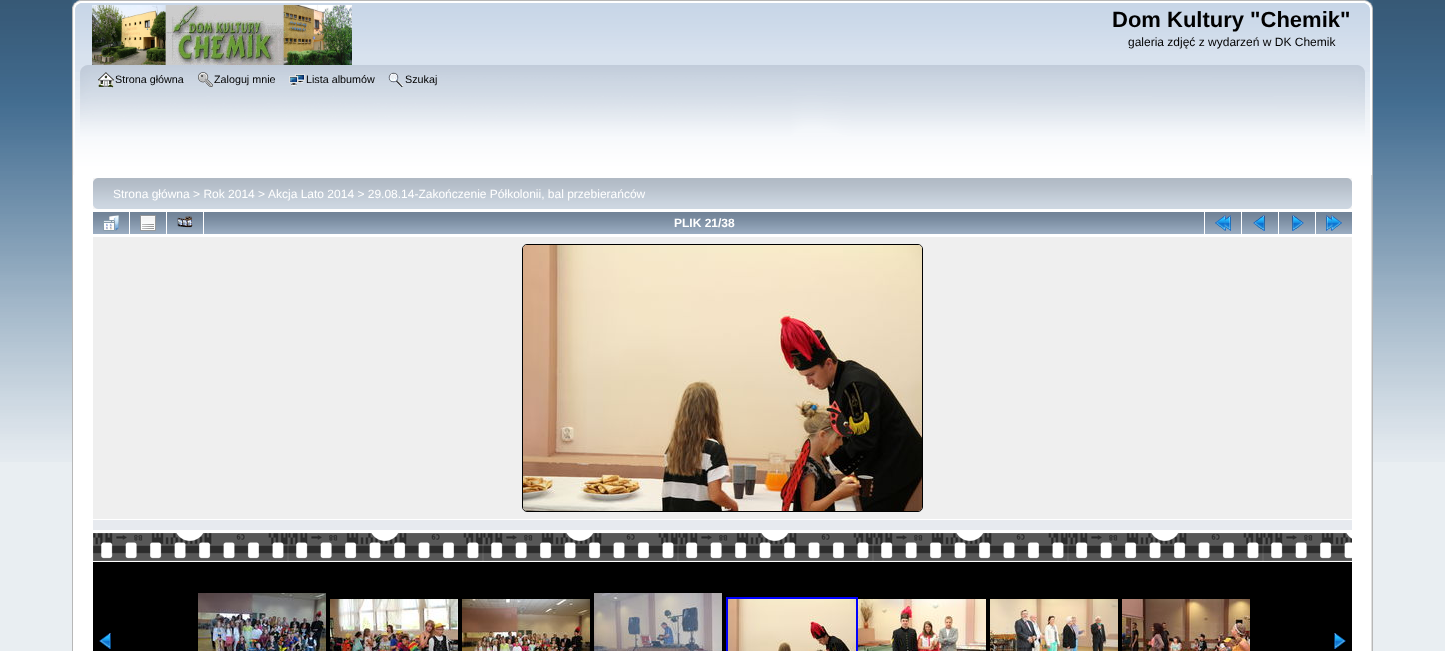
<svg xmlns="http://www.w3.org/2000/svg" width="1445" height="651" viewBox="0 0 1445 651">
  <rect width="100%" height="100%" fill="rgb(233,238,242)"/>
  <image x="0" y="0" width="1445" height="462" href="pic1.png"/>
  <image x="72" y="0" width="1293" height="65" href="pic2.png"/>
  <image x="1365" y="0" width="8" height="65" href="pic3.png"/>
  <image x="92" y="5" width="260" height="60" href="pic4.png"/>
  <text x="1112" y="27" font-family="Liberation Sans" font-size="22" font-weight="bold" fill="rgb(0,0,0)">Dom Kultury "Chemik"</text>
  <text x="1128" y="46" font-family="Liberation Sans" font-size="12" fill="rgb(0,0,0)">galeria zdjęć z wydarzeń w DK Chemik</text>
  <image x="72" y="65" width="1286" height="110" href="pic5.png"/>
  <image x="1358" y="65" width="15" height="110" href="pic6.png"/>
  <image x="98" y="72" width="16" height="16" href="pic7.png"/>
  <text x="115" y="83" font-family="Liberation Sans" font-size="10.75" fill="rgb(0,0,0)">Strona główna</text>
  <image x="198" y="72" width="15" height="15" href="pic8.png"/>
  <text x="214" y="83" font-family="Liberation Sans" font-size="10.75" fill="rgb(0,0,0)">Zaloguj mnie</text>
  <image x="289" y="74" width="16" height="12" href="pic9.png"/>
  <text x="306" y="83" font-family="Liberation Sans" font-size="10.75" fill="rgb(0,0,0)">Lista albumów</text>
  <image x="388" y="72" width="16" height="15" href="pic10.png"/>
  <text x="405" y="83" font-family="Liberation Sans" font-size="10.75" fill="rgb(0,0,0)">Szukaj</text>
  <rect x="73" y="175" width="1298" height="476" fill="rgb(255,255,255)"/>
  <rect x="72" y="175" width="1" height="476" fill="rgb(183,183,183)"/>
  <image x="1371" y="175" width="2" height="476" href="pic11.png"/>
  <image x="93" y="178" width="1254" height="31" href="pic12.png"/>
  <image x="1347" y="178" width="5" height="31" href="pic13.png"/>
  <g font-family="Liberation Sans" font-size="12" fill="rgb(255,255,255)">
    <text x="113" y="198">Strona główna &gt; Rok 2014</text>
    <text x="258" y="198">&gt;</text>
    <text x="268" y="198">Akcja Lato 2014 &gt; 29.08.14-Zakończenie Półkolonii, bal przebierańców</text>
  </g>
  <image x="93" y="212" width="36" height="22" href="pic14.png"/>
  <image x="103" y="215" width="16" height="16" href="pic15.png"/>
  <image x="130" y="212" width="36" height="22" href="pic14.png"/>
  <image x="140" y="215" width="16" height="16" href="pic16.png"/>
  <image x="167" y="212" width="36" height="22" href="pic14.png"/>
  <image x="177" y="216" width="16" height="12" href="pic17.png"/>
  <image x="204" y="212" width="1000" height="22" href="pic18.png"/>
  <text x="674" y="227" font-family="Liberation Sans" font-size="12" font-weight="bold" fill="rgb(255,255,255)">PLIK 21/38</text>
  <image x="1205" y="212" width="36" height="22" href="pic14.png"/>
  <image x="1215" y="215" width="16" height="16" href="pic19.png"/>
  <image x="1242" y="212" width="36" height="22" href="pic14.png"/>
  <image x="1253" y="215" width="12" height="16" href="pic20.png"/>
  <image x="1279" y="212" width="36" height="22" href="pic14.png"/>
  <image x="1292" y="215" width="12" height="16" href="pic21.png"/>
  <image x="1316" y="212" width="36" height="22" href="pic14.png"/>
  <image x="1326" y="215" width="16" height="16" href="pic22.png"/>
  <rect x="93" y="237" width="1259" height="282" fill="rgb(239,239,239)"/>
  <rect x="522.5" y="244.5" width="400" height="267" rx="4.5" fill="none" stroke="rgb(0,0,0)"/>
  <image x="523" y="245" width="399" height="266" href="pic23.png"/>
  <rect x="93" y="520" width="1259" height="10" fill="rgb(231,234,239)"/>
  <image x="93" y="533" width="1259" height="28" href="pic24.png"/>
  <rect x="93" y="562" width="1259" height="89" fill="rgb(0,0,0)"/>
  <image x="99" y="633" width="12" height="16" href="pic25.png"/>
  <image x="198" y="593" width="128" height="58" href="pic26.png"/>
  <image x="330" y="599" width="128" height="52" href="pic27.png"/>
  <image x="462" y="599" width="128" height="52" href="pic28.png"/>
  <image x="594" y="593" width="128" height="58" href="pic29.png"/>
  <rect x="727" y="598" width="130" height="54" fill="none" stroke="rgb(0,0,255)" stroke-width="2"/>
  <image x="728" y="599" width="128" height="52" href="pic30.png"/>
  <image x="858" y="599" width="128" height="52" href="pic31.png"/>
  <image x="990" y="599" width="128" height="52" href="pic32.png"/>
  <image x="1122" y="599" width="128" height="52" href="pic33.png"/>
  <image x="1334" y="633" width="12" height="16" href="pic34.png"/>
</svg>
